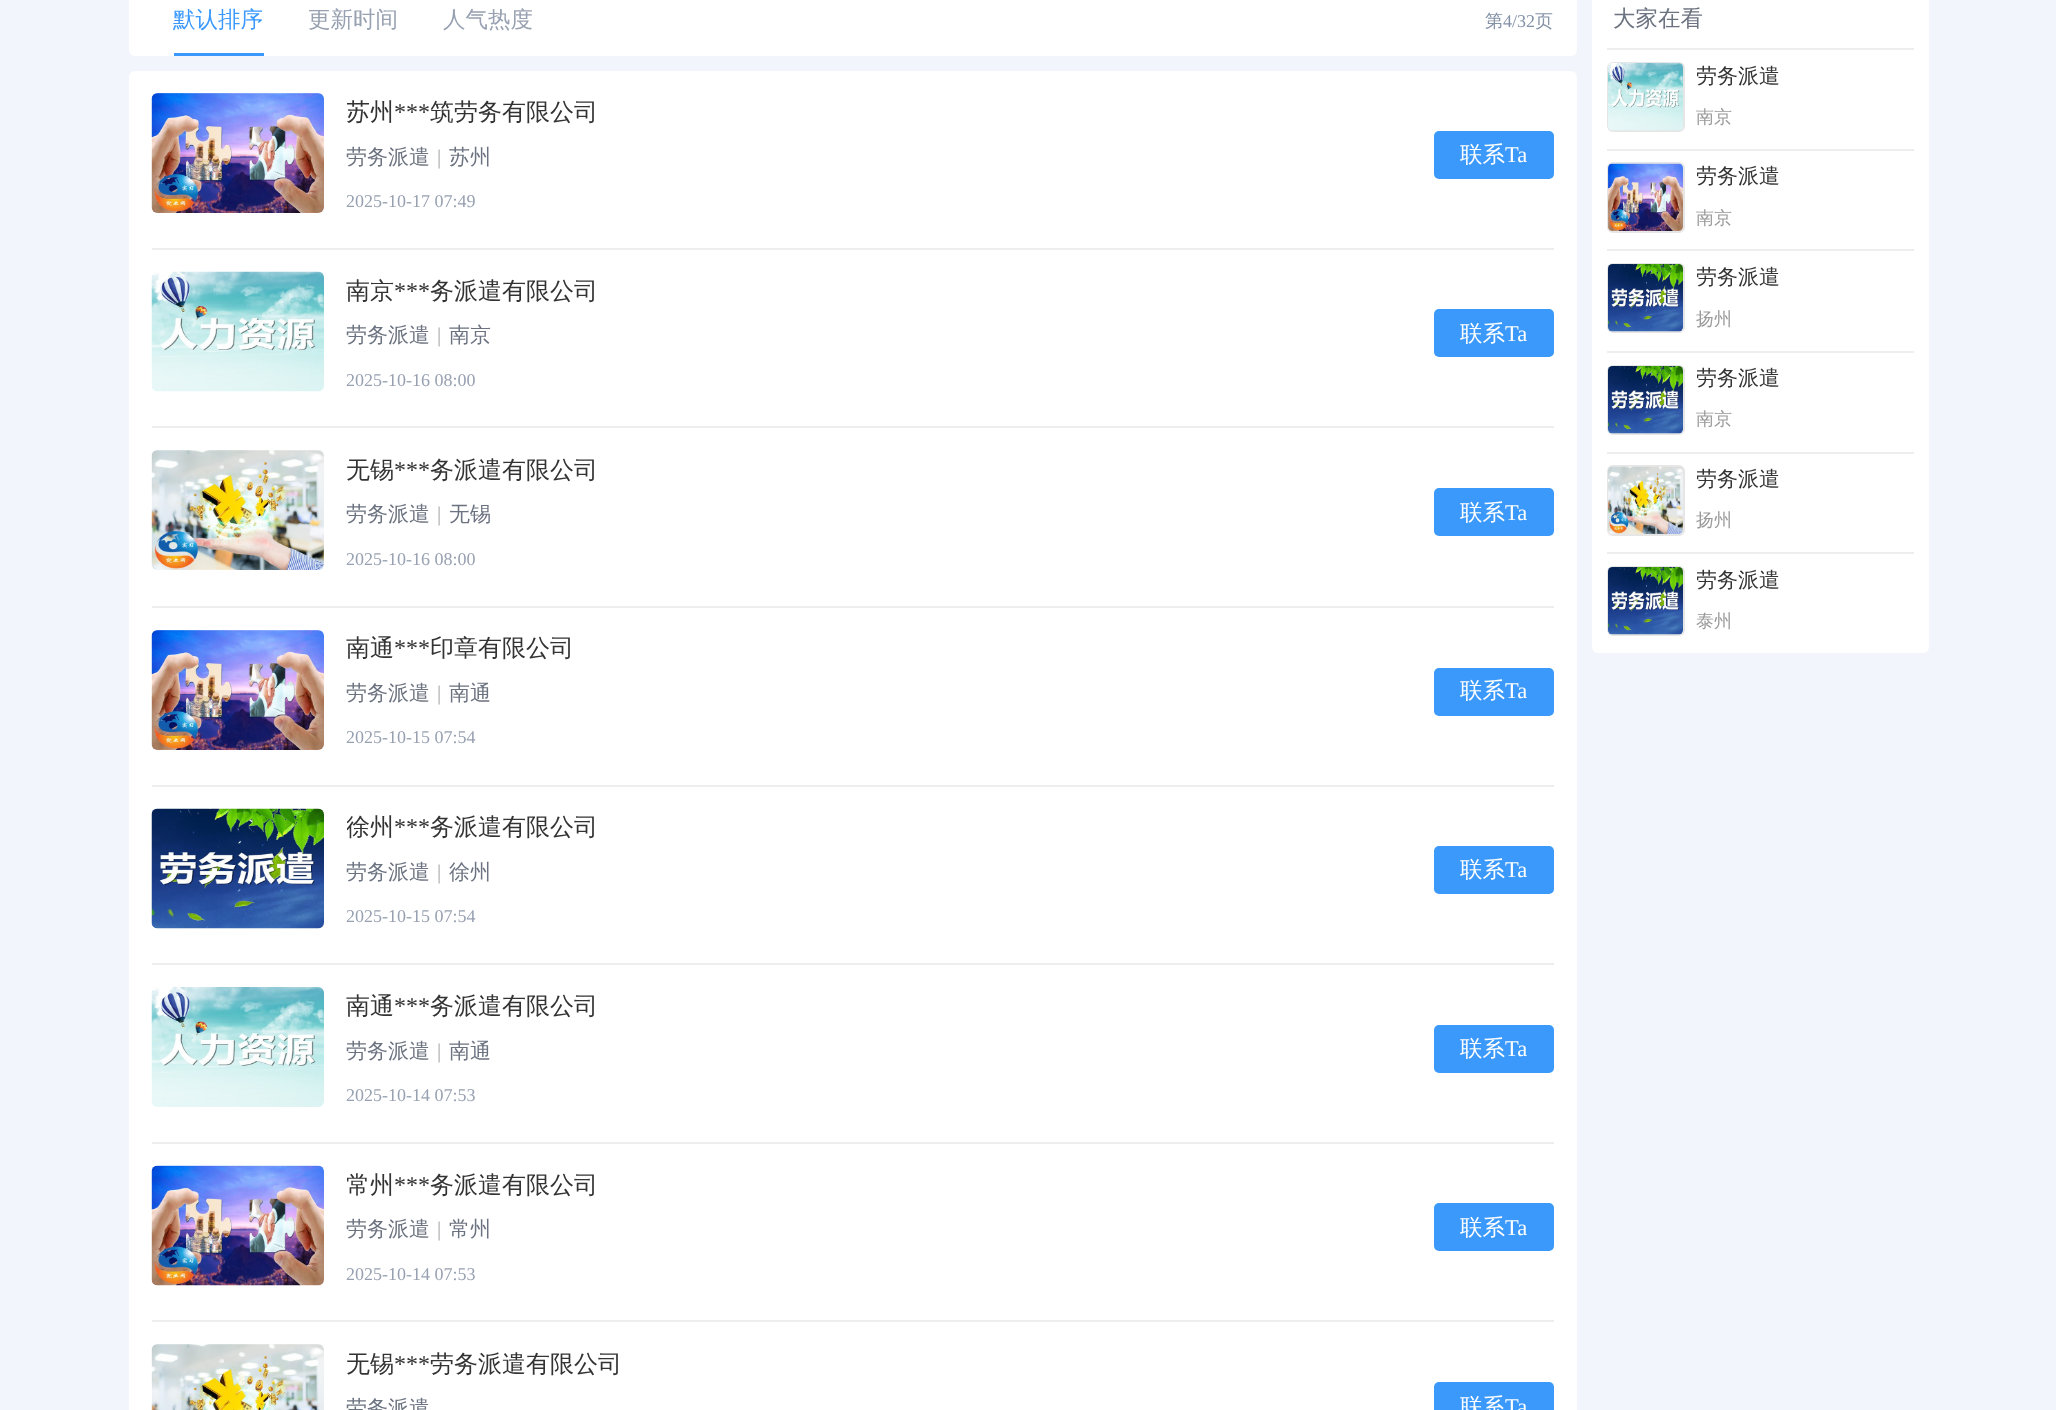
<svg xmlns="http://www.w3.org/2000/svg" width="2056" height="1410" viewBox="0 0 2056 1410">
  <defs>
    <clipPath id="clip1"><rect x="347" y="93" width="855" height="38"/></clipPath>
    <clipPath id="clip2"><rect x="347" y="809" width="855" height="37"/></clipPath>
    <clipPath id="clip3"><rect x="347" y="1166" width="855" height="37"/></clipPath>
    <clipPath id="clip4"><rect x="1697" y="54" width="217" height="45"/></clipPath>
    <clipPath id="clip5"><rect x="1697" y="155" width="217" height="45"/></clipPath>
    <clipPath id="clip6"><rect x="1697" y="255" width="217" height="45"/></clipPath>
    <clipPath id="clip7"><rect x="1697" y="357" width="217" height="45"/></clipPath>
    <clipPath id="clip8"><rect x="1697" y="458" width="217" height="45"/></clipPath>
    <clipPath id="clip9"><rect x="1697" y="558" width="217" height="45"/></clipPath>
  </defs>
  <rect width="100%" height="100%" fill="rgb(242,245,251)"/>
  <rect x="129" y="-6" width="1448" height="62" rx="6" fill="rgb(255,255,255)"/>
  <rect x="174" y="53" width="90" height="3" fill="rgb(59,153,251)"/>
  <text x="173" y="27" font-family="WenQuanYi Zen Hei" font-size="22.5" font-weight="500" fill="rgb(59,153,253)">默认排序</text>
  <g font-family="WenQuanYi Zen Hei" font-size="22.5" font-weight="500" fill="rgb(152,161,177)">
    <text x="308" y="27">更新时间</text>
    <text x="443" y="27">人气热度</text>
  </g>
  <text x="1485" y="27" font-family="WenQuanYi Zen Hei" font-size="18" font-weight="500" fill="rgb(131,146,167)">第</text>
  <text x="1503" y="27" font-family="Liberation Serif" font-size="18" fill="rgb(131,146,167)">4/32</text>
  <text x="1535" y="27" font-family="WenQuanYi Zen Hei" font-size="18" font-weight="500" fill="rgb(131,146,167)">页</text>
  <rect x="129" y="71" width="1448" height="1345" rx="6" fill="rgb(255,255,255)"/>
  <rect x="152" y="248" width="1402" height="2" fill="rgb(238,238,238)"/>
  <image x="151" y="93" width="173" height="120" href="pic1.png"/>
  <g clip-path="url(#clip1)">
    <text x="346" y="120" font-family="WenQuanYi Zen Hei" font-size="24" font-weight="500" fill="rgb(51,51,51)">苏州</text>
  </g>
  <text x="394" y="120" font-family="Liberation Serif" font-size="24" fill="rgb(51,51,51)">***</text>
  <text x="430" y="120" font-family="WenQuanYi Zen Hei" font-size="24" font-weight="500" fill="rgb(51,51,51)">筑劳务有限公司</text>
  <text x="346" y="164" font-family="WenQuanYi Zen Hei" font-size="21" font-weight="500" fill="rgb(108,115,128)">劳务派遣</text>
  <text x="437" y="164" font-family="Liberation Serif" font-size="21" fill="rgb(170,170,170)">|</text>
  <text x="449" y="164" font-family="WenQuanYi Zen Hei" font-size="21" font-weight="500" fill="rgb(108,115,128)">苏州</text>
  <text x="346" y="207" font-family="Liberation Serif" font-size="18" fill="rgb(152,161,177)">2025-10-17 07:49</text>
  <rect x="1434" y="131" width="120" height="48" rx="5" fill="rgb(59,153,251)"/>
  <text x="1460" y="162" font-family="WenQuanYi Zen Hei" font-size="22.5" font-weight="500" fill="rgb(255,255,255)">联系</text>
  <text x="1505" y="162" font-family="Liberation Serif" font-size="22.5" fill="rgb(255,255,255)">Ta</text>
  <rect x="152" y="426" width="1402" height="2" fill="rgb(238,238,238)"/>
  <image x="151" y="271" width="173" height="121" href="pic2.png"/>
  <text x="346" y="299" font-family="WenQuanYi Zen Hei" font-size="24" font-weight="500" fill="rgb(51,51,51)">南京</text>
  <text x="394" y="299" font-family="Liberation Serif" font-size="24" fill="rgb(51,51,51)">***</text>
  <text x="430" y="299" font-family="WenQuanYi Zen Hei" font-size="24" font-weight="500" fill="rgb(51,51,51)">务派遣有限公司</text>
  <text x="346" y="342" font-family="WenQuanYi Zen Hei" font-size="21" font-weight="500" fill="rgb(108,115,128)">劳务派遣</text>
  <text x="437" y="342" font-family="Liberation Serif" font-size="21" fill="rgb(170,170,170)">|</text>
  <text x="449" y="342" font-family="WenQuanYi Zen Hei" font-size="21" font-weight="500" fill="rgb(108,115,128)">南京</text>
  <text x="346" y="386" font-family="Liberation Serif" font-size="18" fill="rgb(152,161,177)">2025-10-16 08:00</text>
  <rect x="1434" y="309" width="120" height="48" rx="5" fill="rgb(59,153,251)"/>
  <text x="1460" y="341" font-family="WenQuanYi Zen Hei" font-size="22.5" font-weight="500" fill="rgb(255,255,255)">联系</text>
  <text x="1505" y="341" font-family="Liberation Serif" font-size="22.5" fill="rgb(255,255,255)">Ta</text>
  <rect x="152" y="606" width="1402" height="2" fill="rgb(238,238,238)"/>
  <image x="151" y="450" width="173" height="120" href="pic3.png"/>
  <text x="346" y="478" font-family="WenQuanYi Zen Hei" font-size="24" font-weight="500" fill="rgb(51,51,51)">无锡</text>
  <text x="394" y="478" font-family="Liberation Serif" font-size="24" fill="rgb(51,51,51)">***</text>
  <text x="430" y="478" font-family="WenQuanYi Zen Hei" font-size="24" font-weight="500" fill="rgb(51,51,51)">务派遣有限公司</text>
  <text x="346" y="521" font-family="WenQuanYi Zen Hei" font-size="21" font-weight="500" fill="rgb(108,115,128)">劳务派遣</text>
  <text x="437" y="521" font-family="Liberation Serif" font-size="21" fill="rgb(170,170,170)">|</text>
  <text x="449" y="521" font-family="WenQuanYi Zen Hei" font-size="21" font-weight="500" fill="rgb(108,115,128)">无锡</text>
  <text x="346" y="565" font-family="Liberation Serif" font-size="18" fill="rgb(152,161,177)">2025-10-16 08:00</text>
  <rect x="1434" y="488" width="120" height="48" rx="5" fill="rgb(59,153,251)"/>
  <text x="1460" y="520" font-family="WenQuanYi Zen Hei" font-size="22.5" font-weight="500" fill="rgb(255,255,255)">联系</text>
  <text x="1505" y="520" font-family="Liberation Serif" font-size="22.5" fill="rgb(255,255,255)">Ta</text>
  <rect x="152" y="785" width="1402" height="2" fill="rgb(238,238,238)"/>
  <image x="151" y="630" width="173" height="120" href="pic4.png"/>
  <text x="346" y="656" font-family="WenQuanYi Zen Hei" font-size="24" font-weight="500" fill="rgb(51,51,51)">南通</text>
  <text x="394" y="656" font-family="Liberation Serif" font-size="24" fill="rgb(51,51,51)">***</text>
  <text x="430" y="656" font-family="WenQuanYi Zen Hei" font-size="24" font-weight="500" fill="rgb(51,51,51)">印章有限公司</text>
  <text x="346" y="700" font-family="WenQuanYi Zen Hei" font-size="21" font-weight="500" fill="rgb(108,115,128)">劳务派遣</text>
  <text x="437" y="700" font-family="Liberation Serif" font-size="21" fill="rgb(170,170,170)">|</text>
  <text x="449" y="700" font-family="WenQuanYi Zen Hei" font-size="21" font-weight="500" fill="rgb(108,115,128)">南通</text>
  <text x="346" y="743" font-family="Liberation Serif" font-size="18" fill="rgb(152,161,177)">2025-10-15 07:54</text>
  <rect x="1434" y="668" width="120" height="48" rx="5" fill="rgb(59,153,251)"/>
  <text x="1460" y="698" font-family="WenQuanYi Zen Hei" font-size="22.5" font-weight="500" fill="rgb(255,255,255)">联系</text>
  <text x="1505" y="698" font-family="Liberation Serif" font-size="22.5" fill="rgb(255,255,255)">Ta</text>
  <rect x="152" y="963" width="1402" height="2" fill="rgb(238,238,238)"/>
  <image x="151" y="808" width="173" height="121" href="pic5.png"/>
  <g clip-path="url(#clip2)">
    <text x="346" y="835" font-family="WenQuanYi Zen Hei" font-size="24" font-weight="500" fill="rgb(51,51,51)">徐州</text>
  </g>
  <text x="394" y="835" font-family="Liberation Serif" font-size="24" fill="rgb(51,51,51)">***</text>
  <text x="430" y="835" font-family="WenQuanYi Zen Hei" font-size="24" font-weight="500" fill="rgb(51,51,51)">务派遣有限公司</text>
  <text x="346" y="879" font-family="WenQuanYi Zen Hei" font-size="21" font-weight="500" fill="rgb(108,115,128)">劳务派遣</text>
  <text x="437" y="879" font-family="Liberation Serif" font-size="21" fill="rgb(170,170,170)">|</text>
  <text x="449" y="879" font-family="WenQuanYi Zen Hei" font-size="21" font-weight="500" fill="rgb(108,115,128)">徐州</text>
  <text x="346" y="922" font-family="Liberation Serif" font-size="18" fill="rgb(152,161,177)">2025-10-15 07:54</text>
  <rect x="1434" y="846" width="120" height="48" rx="5" fill="rgb(59,153,251)"/>
  <text x="1460" y="877" font-family="WenQuanYi Zen Hei" font-size="22.5" font-weight="500" fill="rgb(255,255,255)">联系</text>
  <text x="1505" y="877" font-family="Liberation Serif" font-size="22.5" fill="rgb(255,255,255)">Ta</text>
  <rect x="152" y="1142" width="1402" height="2" fill="rgb(238,238,238)"/>
  <image x="151" y="987" width="173" height="120" href="pic6.png"/>
  <text x="346" y="1014" font-family="WenQuanYi Zen Hei" font-size="24" font-weight="500" fill="rgb(51,51,51)">南通</text>
  <text x="394" y="1014" font-family="Liberation Serif" font-size="24" fill="rgb(51,51,51)">***</text>
  <text x="430" y="1014" font-family="WenQuanYi Zen Hei" font-size="24" font-weight="500" fill="rgb(51,51,51)">务派遣有限公司</text>
  <text x="346" y="1058" font-family="WenQuanYi Zen Hei" font-size="21" font-weight="500" fill="rgb(108,115,128)">劳务派遣</text>
  <text x="437" y="1058" font-family="Liberation Serif" font-size="21" fill="rgb(170,170,170)">|</text>
  <text x="449" y="1058" font-family="WenQuanYi Zen Hei" font-size="21" font-weight="500" fill="rgb(108,115,128)">南通</text>
  <text x="346" y="1101" font-family="Liberation Serif" font-size="18" fill="rgb(152,161,177)">2025-10-14 07:53</text>
  <rect x="1434" y="1025" width="120" height="48" rx="5" fill="rgb(59,153,251)"/>
  <text x="1460" y="1056" font-family="WenQuanYi Zen Hei" font-size="22.5" font-weight="500" fill="rgb(255,255,255)">联系</text>
  <text x="1505" y="1056" font-family="Liberation Serif" font-size="22.5" fill="rgb(255,255,255)">Ta</text>
  <rect x="152" y="1320" width="1402" height="2" fill="rgb(238,238,238)"/>
  <image x="151" y="1165" width="173" height="121" href="pic7.png"/>
  <g clip-path="url(#clip3)">
    <text x="346" y="1193" font-family="WenQuanYi Zen Hei" font-size="24" font-weight="500" fill="rgb(51,51,51)">常州</text>
  </g>
  <text x="394" y="1193" font-family="Liberation Serif" font-size="24" fill="rgb(51,51,51)">***</text>
  <text x="430" y="1193" font-family="WenQuanYi Zen Hei" font-size="24" font-weight="500" fill="rgb(51,51,51)">务派遣有限公司</text>
  <text x="346" y="1236" font-family="WenQuanYi Zen Hei" font-size="21" font-weight="500" fill="rgb(108,115,128)">劳务派遣</text>
  <text x="437" y="1236" font-family="Liberation Serif" font-size="21" fill="rgb(170,170,170)">|</text>
  <text x="449" y="1236" font-family="WenQuanYi Zen Hei" font-size="21" font-weight="500" fill="rgb(108,115,128)">常州</text>
  <text x="346" y="1280" font-family="Liberation Serif" font-size="18" fill="rgb(152,161,177)">2025-10-14 07:53</text>
  <rect x="1434" y="1203" width="120" height="48" rx="5" fill="rgb(59,153,251)"/>
  <text x="1460" y="1235" font-family="WenQuanYi Zen Hei" font-size="22.5" font-weight="500" fill="rgb(255,255,255)">联系</text>
  <text x="1505" y="1235" font-family="Liberation Serif" font-size="22.5" fill="rgb(255,255,255)">Ta</text>
  <image x="151" y="1344" width="173" height="66" href="pic8.png"/>
  <text x="346" y="1372" font-family="WenQuanYi Zen Hei" font-size="24" font-weight="500" fill="rgb(51,51,51)">无锡</text>
  <text x="394" y="1372" font-family="Liberation Serif" font-size="24" fill="rgb(51,51,51)">***</text>
  <text x="430" y="1372" font-family="WenQuanYi Zen Hei" font-size="24" font-weight="500" fill="rgb(51,51,51)">劳务派遣有限公司</text>
  <text x="346" y="1415" font-family="WenQuanYi Zen Hei" font-size="21" font-weight="500" fill="rgb(108,115,128)">劳务派遣</text>
  <rect x="1434" y="1382" width="120" height="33" rx="5" fill="rgb(59,153,251)"/>
  <text x="1460" y="1414" font-family="WenQuanYi Zen Hei" font-size="22.5" font-weight="500" fill="rgb(255,255,255)">联系</text>
  <text x="1505" y="1414" font-family="Liberation Serif" font-size="22.5" fill="rgb(255,255,255)">Ta</text>
  <rect x="1592" y="-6" width="337" height="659" rx="6" fill="rgb(255,255,255)"/>
  <text x="1613" y="26" font-family="WenQuanYi Zen Hei" font-size="22.5" font-weight="500" fill="rgb(108,115,128)">大家在看</text>
  <rect x="1607" y="48" width="307" height="2" fill="rgb(238,238,238)"/>
  <rect x="1608" y="63" width="76" height="68" rx="5" fill="none" stroke="rgb(230,230,230)" stroke-width="2"/>
  <image x="1608" y="63" width="75" height="68" href="pic9.png"/>
  <g clip-path="url(#clip4)">
    <text x="1696" y="83" font-family="WenQuanYi Zen Hei" font-size="21" font-weight="500" fill="rgb(51,51,51)">劳务派遣</text>
  </g>
  <text x="1696" y="123" font-family="WenQuanYi Zen Hei" font-size="18" font-weight="500" fill="rgb(153,153,153)">南京</text>
  <rect x="1607" y="149" width="307" height="2" fill="rgb(238,238,238)"/>
  <rect x="1608" y="163" width="76" height="69" rx="5" fill="none" stroke="rgb(230,230,230)" stroke-width="2"/>
  <image x="1608" y="163" width="75" height="68" href="pic10.png"/>
  <g clip-path="url(#clip5)">
    <text x="1696" y="183" font-family="WenQuanYi Zen Hei" font-size="21" font-weight="500" fill="rgb(51,51,51)">劳务派遣</text>
  </g>
  <text x="1696" y="224" font-family="WenQuanYi Zen Hei" font-size="18" font-weight="500" fill="rgb(153,153,153)">南京</text>
  <rect x="1607" y="249" width="307" height="2" fill="rgb(238,238,238)"/>
  <rect x="1608" y="264" width="76" height="68" rx="5" fill="none" stroke="rgb(230,230,230)" stroke-width="2"/>
  <image x="1608" y="264" width="75" height="68" href="pic11.png"/>
  <g clip-path="url(#clip6)">
    <text x="1696" y="284" font-family="WenQuanYi Zen Hei" font-size="21" font-weight="500" fill="rgb(51,51,51)">劳务派遣</text>
  </g>
  <text x="1696" y="325" font-family="WenQuanYi Zen Hei" font-size="18" font-weight="500" fill="rgb(153,153,153)">扬州</text>
  <rect x="1607" y="351" width="307" height="2" fill="rgb(238,238,238)"/>
  <rect x="1608" y="366" width="76" height="68" rx="5" fill="none" stroke="rgb(230,230,230)" stroke-width="2"/>
  <image x="1608" y="366" width="75" height="68" href="pic11.png"/>
  <g clip-path="url(#clip7)">
    <text x="1696" y="385" font-family="WenQuanYi Zen Hei" font-size="21" font-weight="500" fill="rgb(51,51,51)">劳务派遣</text>
  </g>
  <text x="1696" y="425" font-family="WenQuanYi Zen Hei" font-size="18" font-weight="500" fill="rgb(153,153,153)">南京</text>
  <rect x="1607" y="452" width="307" height="2" fill="rgb(238,238,238)"/>
  <rect x="1608" y="466" width="76" height="69" rx="5" fill="none" stroke="rgb(230,230,230)" stroke-width="2"/>
  <image x="1608" y="466" width="75" height="68" href="pic12.png"/>
  <g clip-path="url(#clip8)">
    <text x="1696" y="486" font-family="WenQuanYi Zen Hei" font-size="21" font-weight="500" fill="rgb(51,51,51)">劳务派遣</text>
  </g>
  <text x="1696" y="526" font-family="WenQuanYi Zen Hei" font-size="18" font-weight="500" fill="rgb(153,153,153)">扬州</text>
  <rect x="1607" y="552" width="307" height="2" fill="rgb(238,238,238)"/>
  <rect x="1608" y="567" width="76" height="68" rx="5" fill="none" stroke="rgb(230,230,230)" stroke-width="2"/>
  <image x="1608" y="567" width="75" height="68" href="pic11.png"/>
  <g clip-path="url(#clip9)">
    <text x="1696" y="587" font-family="WenQuanYi Zen Hei" font-size="21" font-weight="500" fill="rgb(51,51,51)">劳务派遣</text>
  </g>
  <text x="1696" y="627" font-family="WenQuanYi Zen Hei" font-size="18" font-weight="500" fill="rgb(153,153,153)">泰州</text>
</svg>
